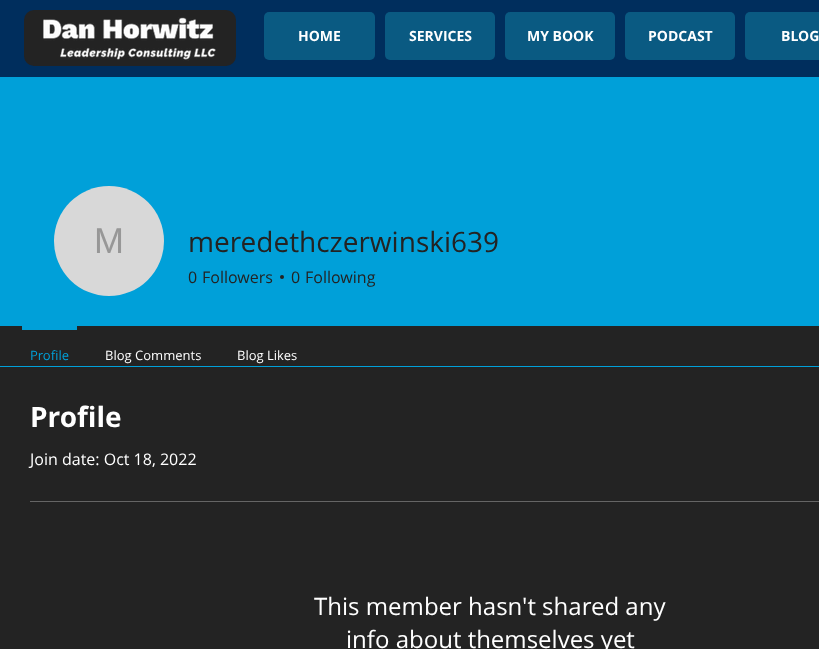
<svg xmlns="http://www.w3.org/2000/svg" width="819" height="649" viewBox="0 0 819 649">
  <rect width="100%" height="100%" fill="rgb(0,160,217)"/>
  <rect x="0" y="0" width="819" height="77" fill="rgb(0,46,93)"/>
  <rect x="24" y="10" width="212" height="56" rx="10" fill="rgb(35,35,35)"/>
  <image x="43" y="17" width="173" height="44" href="pic1.png"/>
  <rect x="264" y="12" width="111" height="48" rx="5" fill="rgb(10,90,130)"/>
  <text x="298" y="41" font-family="Open Sans" font-size="14" font-weight="bold" fill="rgb(255,255,255)">HOME</text>
  <rect x="385" y="12" width="110" height="48" rx="5" fill="rgb(10,90,130)"/>
  <text x="409" y="41" font-family="Open Sans" font-size="14" font-weight="bold" fill="rgb(255,255,255)">SERVICES</text>
  <rect x="505" y="12" width="110" height="48" rx="5" fill="rgb(10,90,130)"/>
  <text x="527" y="41" font-family="Open Sans" font-size="14" font-weight="bold" fill="rgb(255,255,255)">MY BOOK</text>
  <rect x="625" y="12" width="110" height="48" rx="5" fill="rgb(10,90,130)"/>
  <text x="648" y="41" font-family="Open Sans" font-size="14" font-weight="bold" fill="rgb(255,255,255)">PODCAST</text>
  <rect x="745" y="12" width="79" height="48" rx="5" fill="rgb(10,90,130)"/>
  <text x="781" y="41" font-family="Open Sans" font-size="14" font-weight="bold" fill="rgb(255,255,255)">BLOG</text>
  <circle cx="109" cy="241" r="55" fill="rgb(216,216,216)"/>
  <text x="94" y="253" font-family="Liberation Sans" font-size="36" fill="rgb(151,151,151)">M</text>
  <text x="188" y="252" font-family="Open Sans" font-size="28" fill="rgb(35,35,35)">meredethczerwinski639</text>
  <g font-family="Open Sans" font-size="16" fill="rgb(35,35,35)">
    <text x="188" y="283">0</text>
    <text x="202" y="283">Followers</text>
  </g>
  <circle cx="282" cy="277" r="2" fill="rgb(35,35,35)"/>
  <g font-family="Open Sans" font-size="16" fill="rgb(35,35,35)">
    <text x="291" y="283">0</text>
    <text x="305" y="283">Following</text>
  </g>
  <rect x="0" y="326" width="819" height="40" fill="rgb(35,35,35)"/>
  <rect x="22" y="326" width="55" height="4" fill="rgb(0,160,217)"/>
  <text x="30" y="360" font-family="Open Sans" font-size="13" fill="rgb(0,160,217)">Profile</text>
  <g font-family="Open Sans" font-size="13" fill="rgb(255,255,255)">
    <text x="105" y="360">Blog Comments</text>
    <text x="237" y="360">Blog Likes</text>
  </g>
  <rect x="0" y="367" width="819" height="282" fill="rgb(35,35,35)"/>
  <text x="30" y="427" font-family="Open Sans" font-size="28" font-weight="bold" fill="rgb(255,255,255)">Profile</text>
  <text x="30" y="465" font-family="Open Sans" font-size="16" fill="rgb(255,255,255)">Join date: Oct 18, 2022</text>
  <rect x="30" y="501" width="789" height="1" fill="rgb(101,101,101)"/>
  <g font-family="Open Sans" font-size="24" fill="rgb(255,255,255)">
    <text x="314" y="615">This member hasn't shared any</text>
    <text x="346" y="648">info about themselves yet</text>
  </g>
</svg>
